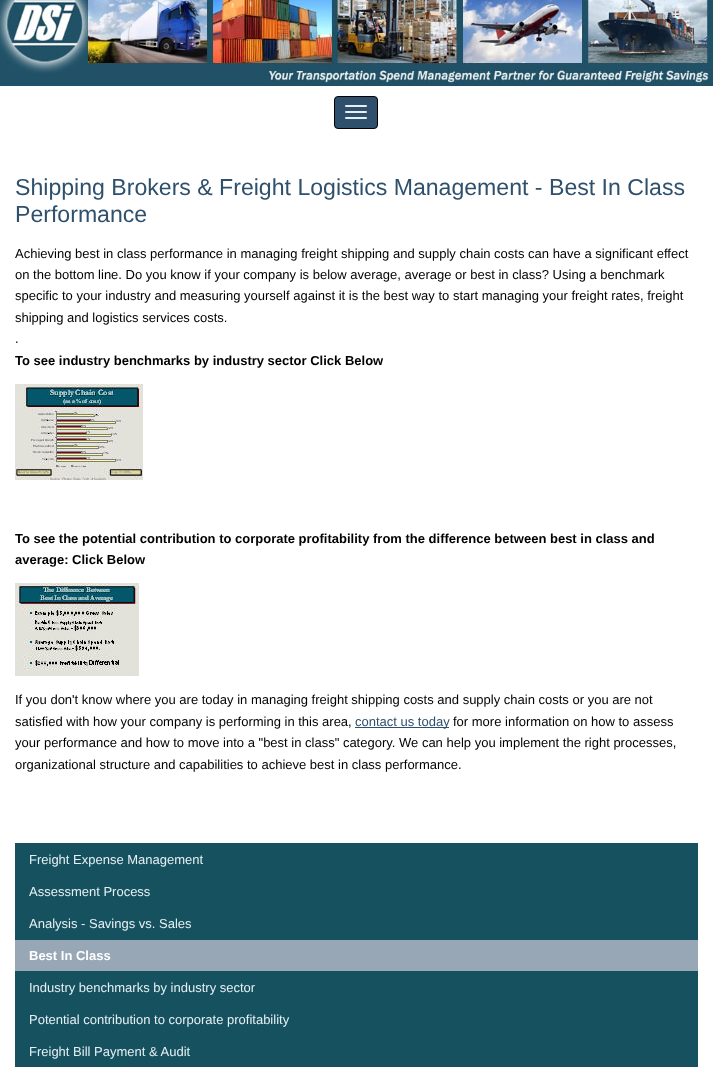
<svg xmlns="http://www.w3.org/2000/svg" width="713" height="1082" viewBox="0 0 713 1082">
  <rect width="100%" height="100%" fill="rgb(255,255,255)"/>
  <image x="0" y="0" width="713" height="86" href="pic1.png"/>
  <rect x="334.5" y="96.5" width="43" height="32" rx="3.5" fill="rgb(47,80,109)" stroke="rgb(0,0,0)"/>
  <rect x="345" y="111" width="22" height="2" rx="1" fill="rgb(233,238,242)"/>
  <rect x="345" y="105" width="22" height="2" rx="1" fill="rgb(233,238,242)"/>
  <rect x="345" y="117" width="22" height="2" rx="1" fill="rgb(233,238,242)"/>
  <g font-family="Liberation Sans" font-size="23.1" fill="rgb(47,80,109)">
    <text>
      <tspan x="15" y="195">Shipping Brokers &amp; Freight Logistics Management - Best In Class</tspan>
      <tspan x="15" y="222">Performance</tspan>
    </text>
  </g>
  <g font-family="Liberation Sans" font-size="13" fill="rgb(0,0,0)">
    <text>
      <tspan x="15" y="258">Achieving best in class performance in managing freight shipping and supply chain costs can have a significant effect</tspan>
      <tspan x="15" y="279">on the bottom line. Do you know if your company is below average, average or best in class? Using a benchmark</tspan>
      <tspan x="15" y="300">specific to your industry and measuring yourself against it is the best way to start managing your freight rates, freight</tspan>
      <tspan x="15" y="322">shipping and logistics services costs.</tspan>
      <tspan x="15" y="343">.</tspan>
    </text>
  </g>
  <text x="15" y="365" font-family="Liberation Sans" font-size="13" font-weight="bold" fill="rgb(0,0,0)">To see industry benchmarks by industry sector Click Below</text>
  <image x="15" y="384" width="128" height="96" href="pic2.png"/>
  <g font-family="Liberation Sans" font-size="13" font-weight="bold" fill="rgb(0,0,0)">
    <text>
      <tspan x="15" y="543">To see the potential contribution to corporate profitability from the difference between best in class and</tspan>
      <tspan x="15" y="564">average: Click Below</tspan>
    </text>
  </g>
  <image x="15" y="583" width="124" height="93" href="pic3.png"/>
  <g font-family="Liberation Sans" font-size="13" fill="rgb(0,0,0)">
    <text>
      <tspan x="15" y="704">If you don't know where you are today in managing freight shipping costs and supply chain costs or you are not</tspan>
      <tspan x="15" y="726">satisfied with how your company is performing in this area,</tspan>
    </text>
  </g>
  <rect x="355" y="727" width="94" height="1" fill="rgb(47,80,109)"/>
  <text x="355" y="726" font-family="Liberation Sans" font-size="13" fill="rgb(47,80,109)">contact us today</text>
  <g font-family="Liberation Sans" font-size="13" fill="rgb(0,0,0)">
    <text x="453" y="726">for more information on how to assess</text>
    <text>
      <tspan x="15" y="747">your performance and how to move into a "best in class" category. We can help you implement the right processes,</tspan>
      <tspan x="15" y="769">organizational structure and capabilities to achieve best in class performance.</tspan>
    </text>
  </g>
  <rect x="15" y="843" width="683" height="97" fill="rgb(22,81,96)"/>
  <g font-family="Liberation Sans" font-size="13" fill="rgb(229,240,242)">
    <text x="29" y="864">Freight Expense Management</text>
    <text x="29" y="896">Assessment Process</text>
    <text x="29" y="928">Analysis - Savings vs. Sales</text>
  </g>
  <rect x="15" y="940" width="683" height="31" fill="rgb(151,167,182)"/>
  <text x="29" y="960" font-family="Liberation Sans" font-size="13" font-weight="bold" fill="rgb(255,255,255)">Best In Class</text>
  <rect x="15" y="971" width="683" height="96" fill="rgb(22,81,96)"/>
  <g font-family="Liberation Sans" font-size="13" fill="rgb(229,240,242)">
    <text x="29" y="992">Industry benchmarks by industry sector</text>
    <text x="29" y="1024">Potential contribution to corporate profitability</text>
    <text x="29" y="1056">Freight Bill Payment &amp; Audit</text>
  </g>
</svg>
